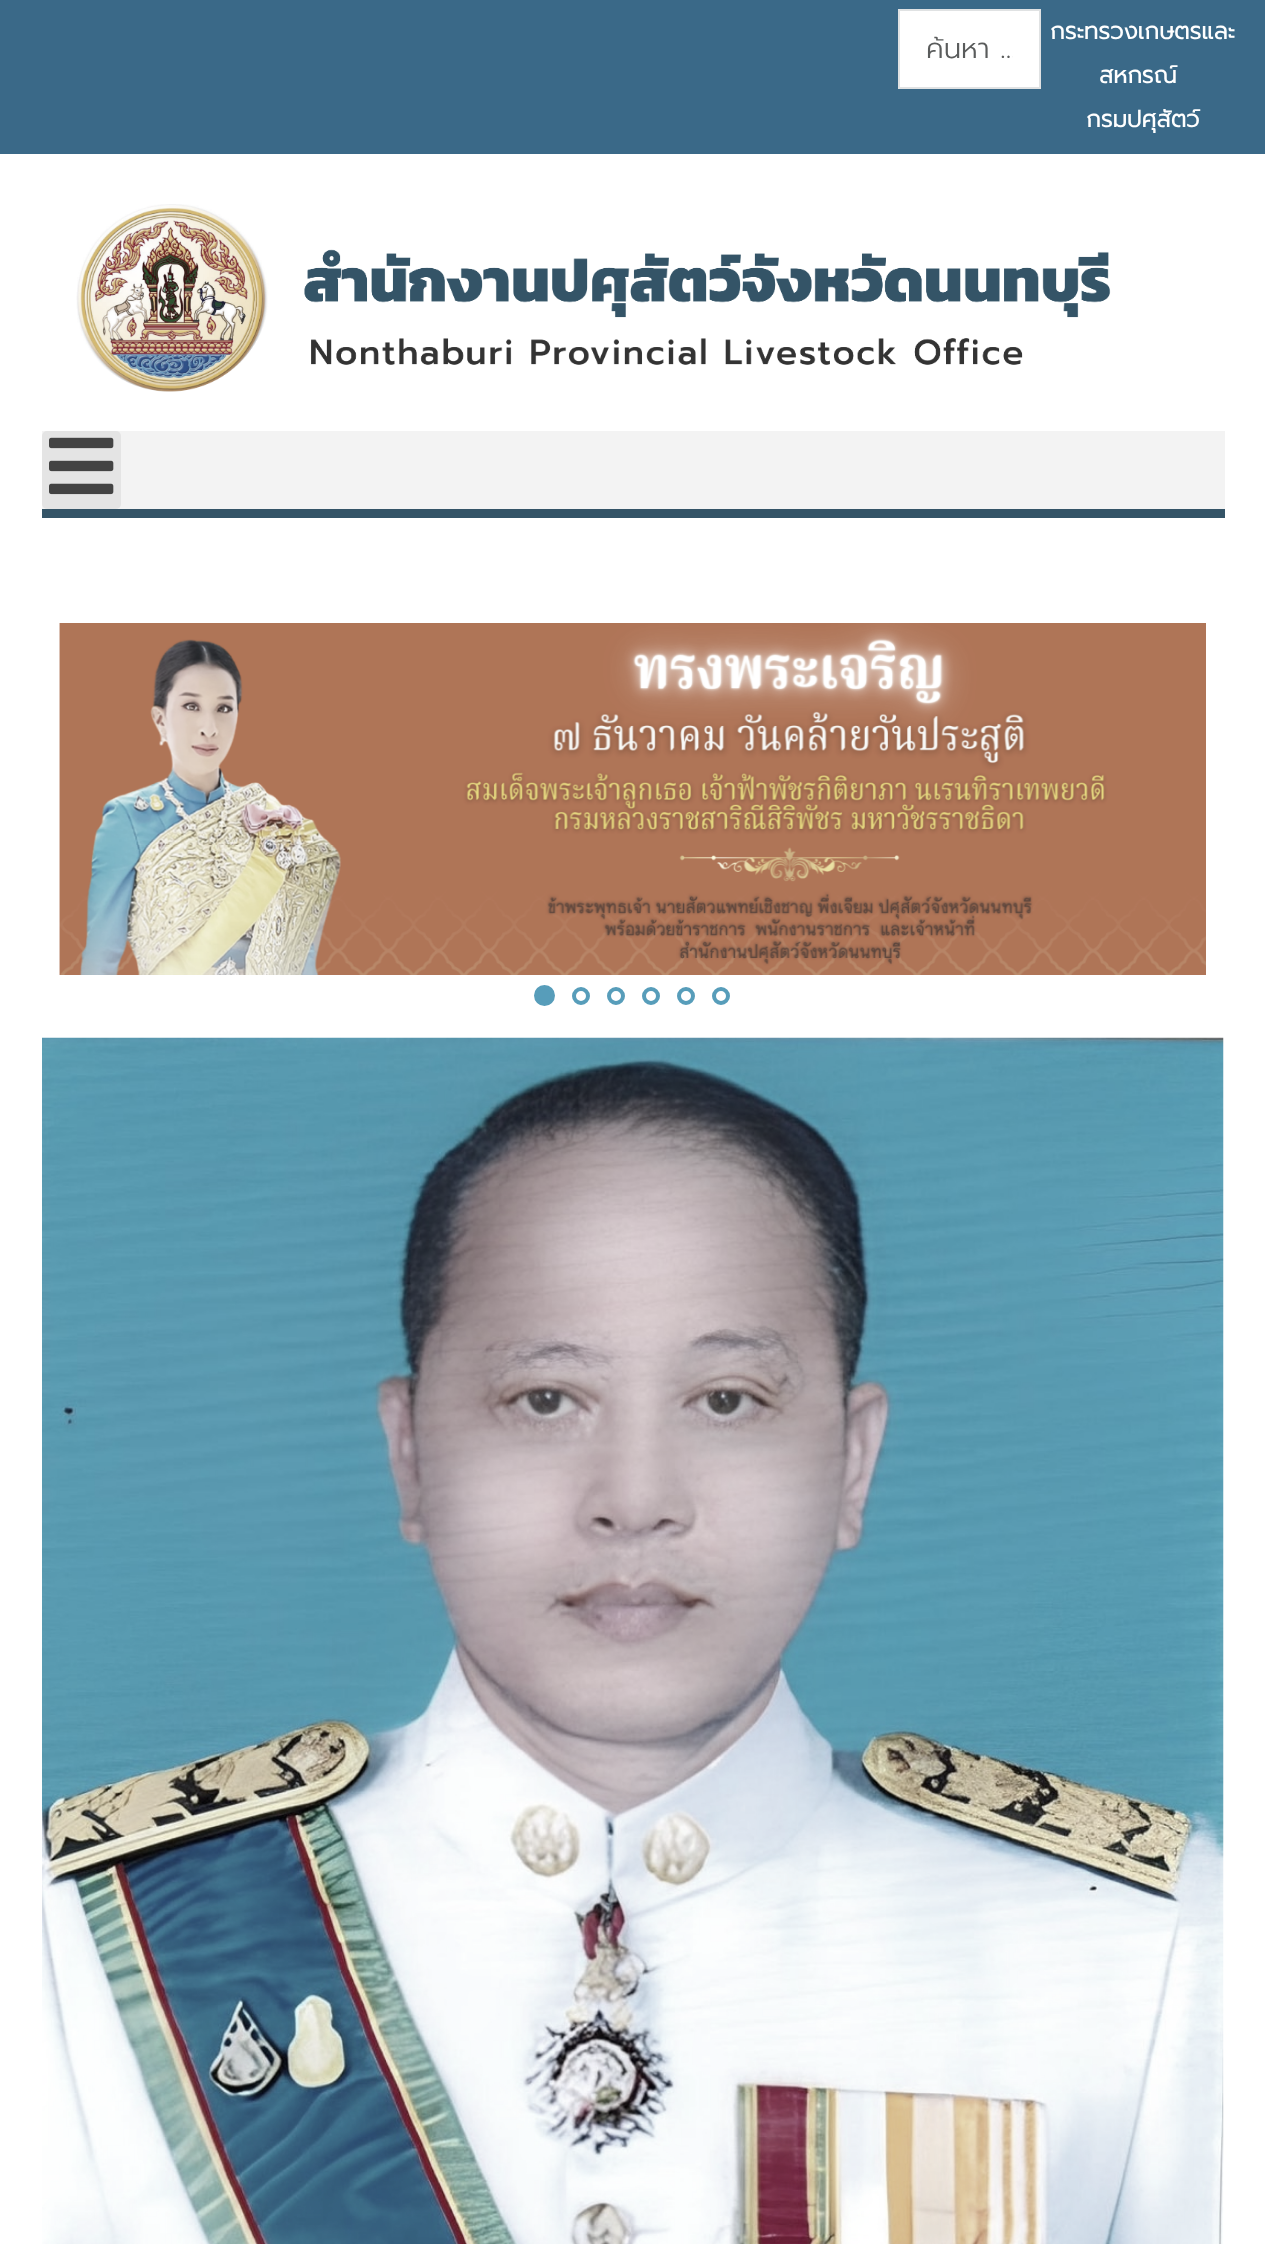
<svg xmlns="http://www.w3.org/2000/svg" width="1265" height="2244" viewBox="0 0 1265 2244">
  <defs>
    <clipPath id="clip1"><rect x="926" y="28" width="87" height="42"/></clipPath>
  </defs>
  <rect width="100%" height="100%" fill="rgb(255,255,255)"/>
  <rect x="0" y="0" width="1265" height="154" fill="rgb(58,105,136)"/>
  <rect x="899" y="10" width="141" height="78" fill="rgb(255,255,255)" stroke="rgb(224,226,227)" stroke-width="2"/>
  <g clip-path="url(#clip1)">
    <text x="926" y="58" font-family="Prompt" font-size="28" font-weight="300" fill="rgb(90,92,92)">ค้นหา …</text>
  </g>
  <g font-family="Prompt" font-size="23.25" font-weight="bold" fill="rgb(255,255,255)">
    <text x="1050" y="39">กระทรวงเกษตรและ</text>
    <text x="1099" y="83">สหกรณ์</text>
    <text x="1086" y="127">กรมปศุสัตว์</text>
  </g>
  <image x="76" y="204" width="1035" height="188" href="pic1.png"/>
  <rect x="42" y="431" width="1183" height="78" fill="rgb(243,243,243)"/>
  <rect x="42" y="431" width="79" height="78" rx="5" fill="rgb(228,228,228)"/>
  <image x="49" y="437" width="65" height="58" href="pic2.png"/>
  <rect x="42" y="509" width="1183" height="9" fill="rgb(52,84,103)"/>
  <image x="59" y="623" width="1147" height="352" href="pic3.png"/>
  <circle cx="544.5" cy="995.5" r="8.5" fill="rgb(87,157,186)" stroke="rgb(87,157,186)" stroke-width="4"/>
  <circle cx="581" cy="996" r="7" fill="none" stroke="rgb(87,157,186)" stroke-width="4"/>
  <circle cx="616" cy="996" r="7" fill="none" stroke="rgb(87,157,186)" stroke-width="4"/>
  <circle cx="651" cy="996" r="7" fill="none" stroke="rgb(87,157,186)" stroke-width="4"/>
  <circle cx="686" cy="996" r="7" fill="none" stroke="rgb(87,157,186)" stroke-width="4"/>
  <circle cx="721" cy="996" r="7" fill="none" stroke="rgb(87,157,186)" stroke-width="4"/>
  <image x="42" y="1037" width="1182" height="1207" href="pic4.png"/>
</svg>
